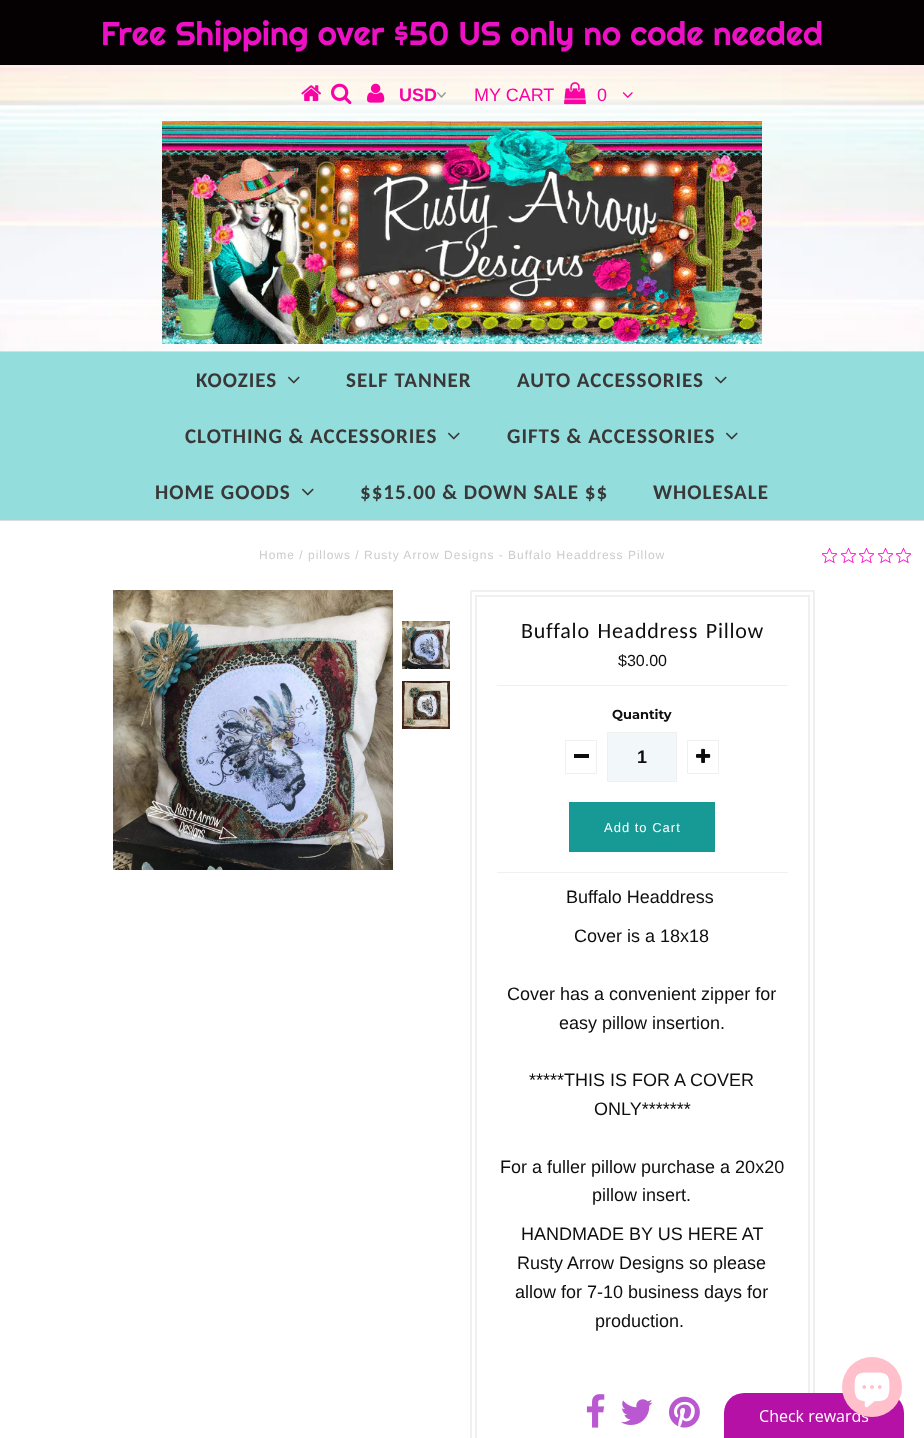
<svg xmlns="http://www.w3.org/2000/svg" width="924" height="1438" viewBox="0 0 924 1438">
  <rect width="100%" height="100%" fill="rgb(255,255,255)"/>
  <image x="0" y="65" width="924" height="286" href="pic1.png"/>
  <rect x="0" y="0" width="924" height="65" fill="rgb(5,0,2)"/>
  <text x="101" y="45" font-family="Righteous" font-size="33" fill="rgb(237,17,197)">Free Shipping over $50 US only no code needed</text>
  <image x="301" y="85" width="21" height="16" href="pic2.png"/>
  <image x="331" y="83" width="21" height="22" href="pic3.png"/>
  <image x="367" y="83" width="18" height="20" href="pic4.png"/>
  <image x="437" y="92" width="9" height="6" href="pic5.png"/>
  <text x="399" y="101" font-family="Liberation Sans" font-size="18" font-weight="bold" fill="rgb(250,3,165)">USD</text>
  <text x="474" y="101" font-family="Liberation Sans" font-size="18" fill="rgb(250,3,165)">MY CART</text>
  <image x="564" y="82" width="22" height="23" href="pic6.png"/>
  <text x="597" y="101" font-family="Liberation Sans" font-size="18" fill="rgb(250,3,165)">0</text>
  <image x="622" y="92" width="11" height="6" href="pic7.png"/>
  <image x="162" y="121" width="600" height="223" href="pic8.png"/>
  <rect x="0" y="352" width="924" height="168" fill="rgb(147,222,220)"/>
  <rect x="0" y="351" width="924" height="1" fill="rgb(221,221,221)"/>
  <rect x="0" y="520" width="924" height="1" fill="rgb(221,221,221)"/>
  <text x="196" y="387" font-family="Carlito" font-size="21" font-weight="bold" letter-spacing="1" fill="rgb(57,55,55)">KOOZIES</text>
  <image x="288" y="376" width="12" height="8" href="pic9.png"/>
  <g font-family="Carlito" font-size="21" font-weight="bold" letter-spacing="1" fill="rgb(57,55,55)">
    <text x="346" y="387">SELF TANNER</text>
    <text x="517" y="387">AUTO ACCESSORIES</text>
  </g>
  <image x="715" y="376" width="12" height="8" href="pic9.png"/>
  <text x="185" y="443" font-family="Carlito" font-size="21" font-weight="bold" letter-spacing="1" fill="rgb(57,55,55)">CLOTHING &amp; ACCESSORIES</text>
  <image x="448" y="432" width="12" height="8" href="pic9.png"/>
  <text x="507" y="443" font-family="Carlito" font-size="21" font-weight="bold" letter-spacing="1" fill="rgb(57,55,55)">GIFTS &amp; ACCESSORIES</text>
  <image x="726" y="432" width="12" height="8" href="pic9.png"/>
  <text x="155" y="499" font-family="Carlito" font-size="21" font-weight="bold" letter-spacing="1" fill="rgb(57,55,55)">HOME GOODS</text>
  <image x="302" y="488" width="12" height="8" href="pic9.png"/>
  <g font-family="Carlito" font-size="21" font-weight="bold" letter-spacing="1" fill="rgb(57,55,55)">
    <text x="360" y="499">$$15.00 &amp; DOWN SALE $$</text>
    <text x="653" y="499">WHOLESALE</text>
  </g>
  <text x="259" y="559" font-family="Liberation Sans" font-size="12" letter-spacing="1" fill="rgb(204,204,204)">Home / pillows / Rusty Arrow Designs - Buffalo Headdress Pillow</text>
  <image x="822" y="548" width="15" height="15" href="pic10.png"/>
  <image x="841" y="548" width="15" height="15" href="pic10.png"/>
  <image x="859" y="548" width="15" height="15" href="pic10.png"/>
  <image x="878" y="548" width="15" height="15" href="pic10.png"/>
  <image x="896" y="548" width="15" height="15" href="pic10.png"/>
  <image x="113" y="590" width="280" height="280" href="pic11.png"/>
  <image x="402" y="621" width="48" height="48" href="pic12.png"/>
  <image x="402" y="681" width="48" height="48" href="pic13.png"/>
  <rect x="471" y="591" width="343" height="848" fill="none" stroke="rgb(240,240,240)" stroke-width="2"/>
  <rect x="476" y="596" width="333" height="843" fill="none" stroke="rgb(240,240,240)" stroke-width="2"/>
  <text x="521" y="638" word-spacing="2" font-family="Carlito" font-size="22" letter-spacing="0.75" fill="rgb(14,14,14)">Buffalo Headdress Pillow</text>
  <text x="618" y="666" font-family="Liberation Sans" font-size="16" fill="rgb(14,14,14)">$30.00</text>
  <rect x="497" y="685" width="291" height="1" fill="rgb(240,240,240)"/>
  <rect x="497" y="872" width="291" height="1" fill="rgb(240,240,240)"/>
  <text x="612" y="719" font-family="Montserrat" font-size="13" font-weight="bold" fill="rgb(14,14,14)">Quantity</text>
  <rect x="565.5" y="740.5" width="31" height="33" fill="none" stroke="rgb(240,240,240)"/>
  <rect x="574" y="754" width="15" height="4" fill="rgb(14,14,14)"/>
  <rect x="607.5" y="732.5" width="69" height="49" fill="rgb(242,247,249)" stroke="rgb(240,240,240)"/>
  <text x="637" y="763" font-family="Liberation Sans" font-size="18" font-weight="bold" fill="rgb(14,14,14)">1</text>
  <rect x="687.5" y="740.5" width="31" height="33" fill="none" stroke="rgb(240,240,240)"/>
  <image x="696" y="748" width="15" height="15" href="pic14.png"/>
  <rect x="569" y="802" width="146" height="50" fill="rgb(23,154,150)"/>
  <text x="604" y="832" font-family="Liberation Sans" font-size="13" letter-spacing="1" fill="rgb(255,255,255)">Add to Cart</text>
  <g font-family="Liberation Sans" font-size="18" fill="rgb(14,14,14)">
    <text x="566" y="903">Buffalo Headdress</text>
    <text x="574" y="942">Cover is a 18x18</text>
    <text x="507" y="1000">Cover has a convenient zipper for</text>
    <text x="559" y="1029">easy pillow insertion.</text>
    <text x="529" y="1086">*****THIS IS FOR A COVER</text>
    <text x="594" y="1115">ONLY*******</text>
    <text x="500" y="1173">For a fuller pillow purchase a 20x20</text>
    <text x="592" y="1201">pillow insert.</text>
    <text x="521" y="1240">HANDMADE BY US HERE AT</text>
    <text x="517" y="1269">Rusty Arrow Designs so please</text>
    <text x="515" y="1298">allow for 7-10 business days for</text>
    <text x="595" y="1327">production.</text>
  </g>
  <image x="586" y="1394" width="19" height="34" href="pic15.png"/>
  <image x="621" y="1399" width="32" height="26" href="pic16.png"/>
  <image x="669" y="1396" width="31" height="32" href="pic17.png"/>
  <image x="724" y="1393" width="180" height="45" href="pic19.png"/>
  <circle cx="872" cy="1387" r="30" fill="rgb(255,192,203)"/>
  <image x="854" y="1372" width="36" height="36" href="pic18.png"/>
</svg>
